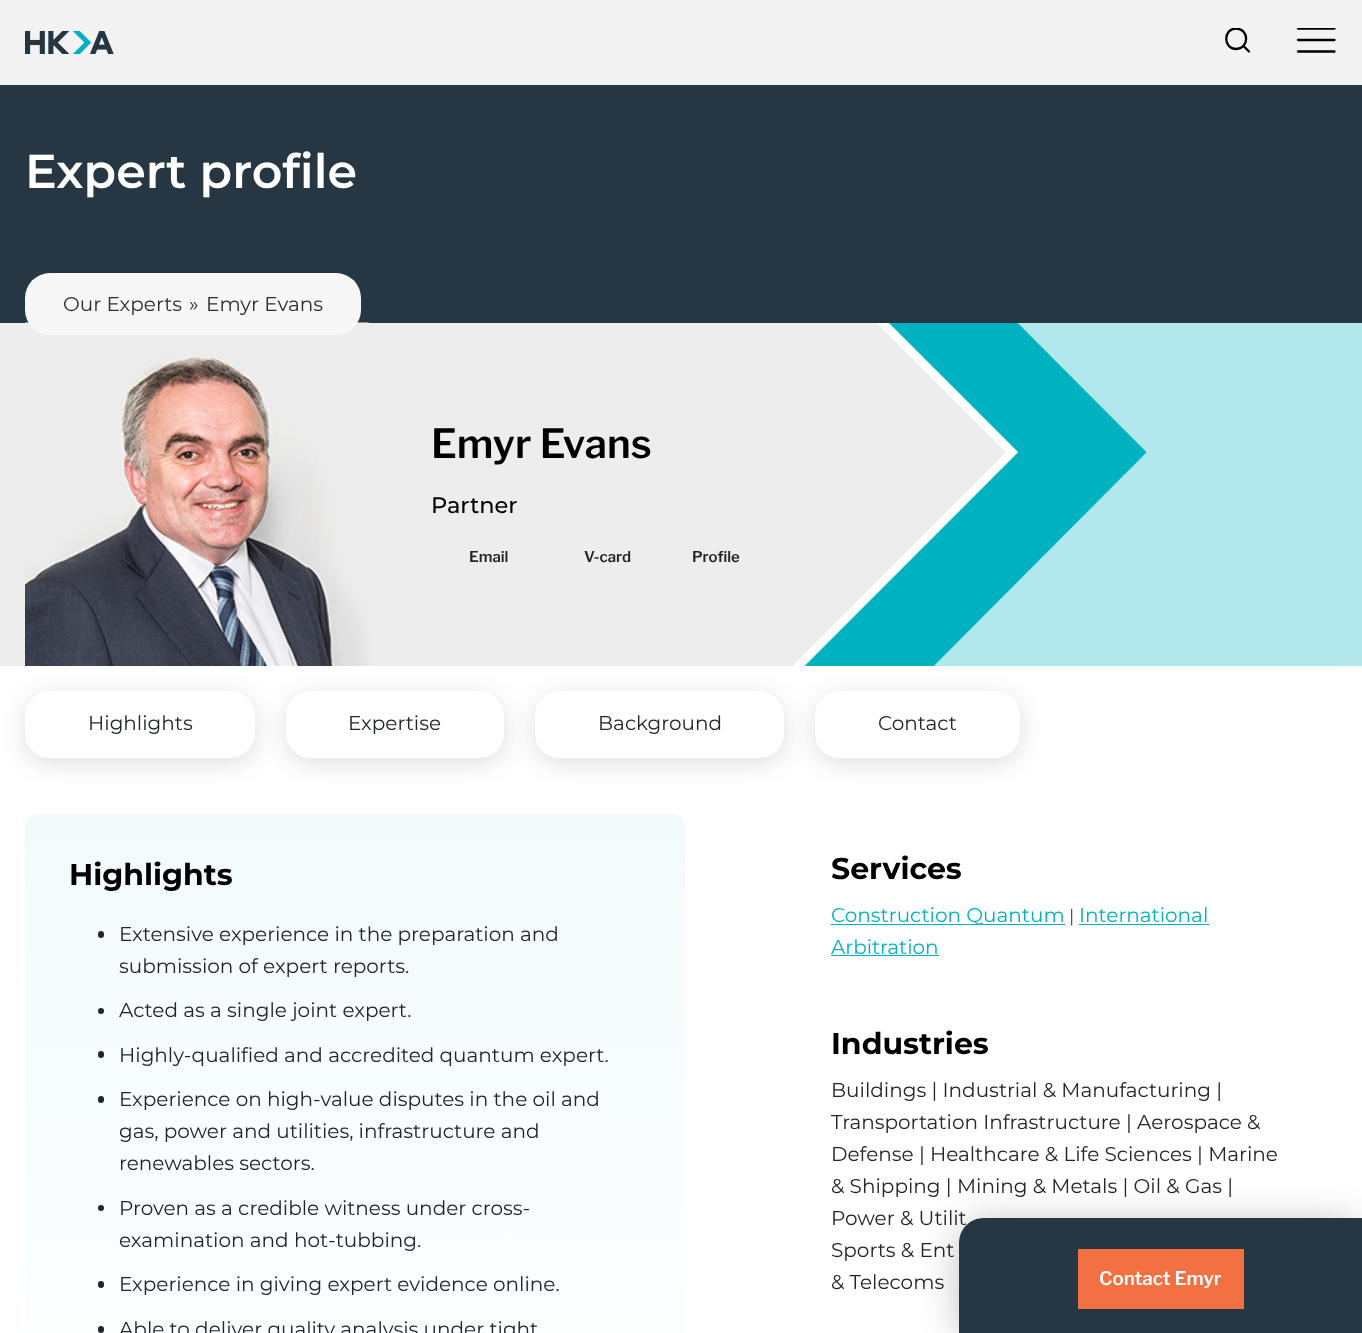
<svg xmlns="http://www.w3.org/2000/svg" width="1362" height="1333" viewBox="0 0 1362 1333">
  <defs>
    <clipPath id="clip1"><rect x="1224" y="28" width="27" height="25"/></clipPath>
    <clipPath id="clip2"><rect x="1295" y="28" width="43" height="25"/></clipPath>
    <clipPath id="clip3"><path d="M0 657H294V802H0ZM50 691H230C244 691 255 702 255 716V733C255 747 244 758 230 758H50C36 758 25 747 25 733V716C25 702 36 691 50 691Z" clip-rule="evenodd"/></clipPath>
    <clipPath id="clip4"><path d="M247 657H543V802H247ZM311 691H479C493 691 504 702 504 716V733C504 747 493 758 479 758H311C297 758 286 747 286 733V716C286 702 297 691 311 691Z" clip-rule="evenodd"/></clipPath>
    <clipPath id="clip5"><path d="M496 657H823V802H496ZM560 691H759C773 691 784 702 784 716V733C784 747 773 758 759 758H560C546 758 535 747 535 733V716C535 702 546 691 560 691Z" clip-rule="evenodd"/></clipPath>
    <clipPath id="clip6"><path d="M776 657H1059V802H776ZM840 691H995C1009 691 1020 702 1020 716V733C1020 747 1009 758 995 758H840C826 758 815 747 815 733V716C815 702 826 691 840 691Z" clip-rule="evenodd"/></clipPath>
    <linearGradient id="g1" gradientUnits="userSpaceOnUse" x1="355" y1="814" x2="355" y2="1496"><stop offset="0" stop-color="rgb(242,251,252)"/><stop offset="1" stop-color="rgb(255,255,255)"/></linearGradient>
  </defs>
  <rect width="100%" height="100%" fill="rgb(255,255,255)"/>
  <rect x="0" y="0" width="1362" height="85" fill="rgb(243,243,243)"/>
  <image x="25" y="30" width="89" height="25" href="pic1.png"/>
  <g clip-path="url(#clip1)">
    <path d="M1236 49C1249.5 49 1249.5 28.5 1236 28.5C1223 28.5 1223 49 1236 49Z" fill="none" stroke="rgb(0,0,0)" stroke-width="2.3" stroke-linecap="round" stroke-linejoin="round"/>
  </g>
  <path d="M1249 51.5L1243.5 46" fill="none" stroke="rgb(0,0,0)" stroke-width="2.3" stroke-linecap="round" stroke-linejoin="round"/>
  <g clip-path="url(#clip2)">
    <path d="M1298 28.5H1334.5" fill="none" stroke="rgb(0,0,0)" stroke-width="2.3" stroke-linecap="round" stroke-linejoin="round"/>
  </g>
  <path d="M1298 40H1334.5" fill="none" stroke="rgb(0,0,0)" stroke-width="2.3" stroke-linecap="round" stroke-linejoin="round"/>
  <path d="M1298 51.5H1334.5" fill="none" stroke="rgb(0,0,0)" stroke-width="2.3" stroke-linecap="round" stroke-linejoin="round"/>
  <rect x="0" y="85" width="1362" height="238" fill="rgb(38,54,66)"/>
  <text x="25" y="188" font-family="Montserrat" font-size="47.5" font-weight="600" fill="rgb(255,255,255)">Expert profile</text>
  <rect x="0" y="323" width="793" height="343" fill="rgb(237,237,237)"/>
  <image x="25" y="322" width="344" height="344" href="pic2.png"/>
  <rect x="25" y="273" width="336" height="62" rx="25" fill="rgb(247,247,247)"/>
  <g font-family="Montserrat" font-size="20" fill="rgb(43,45,54)">
    <text x="63" y="311">Our Experts</text>
    <text x="189" y="311">»</text>
    <text x="206" y="311">Emyr Evans</text>
  </g>
  <text x="431" y="458" font-family="Libre Franklin" font-size="40" font-weight="600" fill="rgb(0,0,0)">Emyr Evans</text>
  <text x="431" y="513" font-family="Montserrat" font-size="22.5" font-weight="500" fill="rgb(0,0,0)">Partner</text>
  <g font-family="Libre Franklin" font-size="15" font-weight="600" fill="rgb(33,38,42)">
    <text x="469" y="562">Email</text>
    <text x="584" y="562">V-card</text>
    <text x="692" y="562">Profile</text>
  </g>
  <image x="793" y="323" width="569" height="344" href="pic3.png"/>
  <rect x="804" y="666" width="534" height="1" fill="rgb(255,255,255)"/>
  <g clip-path="url(#clip3)">
    <rect x="25" y="696" width="230" height="67" rx="25" fill="rgba(0,0,0,0.13)" filter="blur(12.5px)"/>
  </g>
  <text x="88" y="730" font-family="Montserrat" font-size="20" fill="rgb(33,38,42)">Highlights</text>
  <g clip-path="url(#clip4)">
    <rect x="286" y="696" width="218" height="67" rx="25" fill="rgba(0,0,0,0.13)" filter="blur(12.5px)"/>
  </g>
  <text x="348" y="730" font-family="Montserrat" font-size="20" fill="rgb(33,38,42)">Expertise</text>
  <g clip-path="url(#clip5)">
    <rect x="535" y="696" width="249" height="67" rx="25" fill="rgba(0,0,0,0.13)" filter="blur(12.5px)"/>
  </g>
  <text x="598" y="730" font-family="Montserrat" font-size="20" fill="rgb(33,38,42)">Background</text>
  <g clip-path="url(#clip6)">
    <rect x="815" y="696" width="205" height="67" rx="25" fill="rgba(0,0,0,0.13)" filter="blur(12.5px)"/>
  </g>
  <text x="878" y="730" font-family="Montserrat" font-size="20" fill="rgb(33,38,42)">Contact</text>
  <rect x="25" y="814" width="660" height="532" rx="13" fill="url(#g1)"/>
  <text x="69" y="885" font-family="Montserrat" font-size="30" font-weight="bold" fill="rgb(0,0,0)">Highlights</text>
  <rect x="98" y="931" width="6" height="7" rx="3" fill="rgb(33,38,42)"/>
  <g font-family="Montserrat" font-size="20" fill="rgb(33,38,42)">
    <text>
      <tspan x="119" y="941">Extensive experience in the preparation and</tspan>
      <tspan x="119" y="973">submission of expert reports.</tspan>
    </text>
  </g>
  <circle cx="101" cy="1011" r="3" fill="rgb(33,38,42)"/>
  <text x="119" y="1017" font-family="Montserrat" font-size="20" fill="rgb(33,38,42)">Acted as a single joint expert.</text>
  <rect x="98" y="1051" width="6" height="7" rx="3" fill="rgb(33,38,42)"/>
  <text x="119" y="1062" font-family="Montserrat" font-size="20" fill="rgb(33,38,42)">Highly-qualified and accredited quantum expert.</text>
  <rect x="98" y="1096" width="6" height="7" rx="3" fill="rgb(33,38,42)"/>
  <g font-family="Montserrat" font-size="20" fill="rgb(33,38,42)">
    <text>
      <tspan x="119" y="1106">Experience on high-value disputes in the oil and</tspan>
      <tspan x="119" y="1138">gas, power and utilities, infrastructure and</tspan>
      <tspan x="119" y="1170">renewables sectors.</tspan>
    </text>
  </g>
  <circle cx="101" cy="1208" r="3" fill="rgb(33,38,42)"/>
  <g font-family="Montserrat" font-size="20" fill="rgb(33,38,42)">
    <text>
      <tspan x="119" y="1215">Proven as a credible witness under cross-</tspan>
      <tspan x="119" y="1247">examination and hot-tubbing.</tspan>
    </text>
  </g>
  <rect x="98" y="1281" width="6" height="7" rx="3" fill="rgb(33,38,42)"/>
  <text x="119" y="1291" font-family="Montserrat" font-size="20" fill="rgb(33,38,42)">Experience in giving expert evidence online.</text>
  <rect x="98" y="1326" width="6" height="7" rx="3" fill="rgb(33,38,42)"/>
  <text x="119" y="1336" font-family="Montserrat" font-size="20" fill="rgb(33,38,42)">Able to deliver quality analysis under tight</text>
  <text x="831" y="879" font-family="Montserrat" font-size="30" font-weight="bold" fill="rgb(0,0,0)">Services</text>
  <rect x="831" y="924" width="234" height="1" fill="rgb(0,178,191)"/>
  <text x="831" y="922" font-family="Montserrat" font-size="20" fill="rgb(0,178,191)">Construction Quantum</text>
  <text x="1069" y="922" font-family="Montserrat" font-size="18" fill="rgb(73,77,81)">|</text>
  <text x="1079" y="922" font-family="Montserrat" font-size="20" fill="rgb(0,178,191)">International</text>
  <rect x="1079" y="924" width="130" height="1" fill="rgb(0,178,191)"/>
  <text x="831" y="954" font-family="Montserrat" font-size="20" fill="rgb(0,178,191)">Arbitration</text>
  <rect x="831" y="955" width="108" height="1" fill="rgb(0,178,191)"/>
  <text x="831" y="1054" font-family="Montserrat" font-size="30" font-weight="bold" fill="rgb(0,0,0)">Industries</text>
  <g font-family="Montserrat" font-size="20" fill="rgb(33,38,42)">
    <text>
      <tspan x="831" y="1097">Buildings | Industrial &amp; Manufacturing |</tspan>
      <tspan x="831" y="1129">Transportation Infrastructure | Aerospace &amp;</tspan>
      <tspan x="831" y="1161">Defense | Healthcare &amp; Life Sciences | Marine</tspan>
      <tspan x="831" y="1193">&amp; Shipping | Mining &amp; Metals | Oil &amp; Gas |</tspan>
      <tspan x="831" y="1225">Power &amp; Utilit</tspan>
      <tspan x="831" y="1257">Sports &amp; Ent</tspan>
      <tspan x="831" y="1289">&amp; Telecoms</tspan>
    </text>
  </g>
  <rect x="959" y="1223" width="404" height="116" rx="25" fill="rgba(0,0,0,0.25)" filter="blur(19px)"/>
  <path d="M984 1218H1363V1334H959V1243C959 1229 970 1218 984 1218Z" fill="rgb(38,54,66)"/>
  <rect x="1078" y="1249" width="166" height="60" fill="rgb(242,112,66)"/>
  <text x="1099" y="1285" font-family="Libre Franklin" font-size="18.75" font-weight="600" fill="rgb(255,255,255)">Contact Emyr</text>
</svg>
